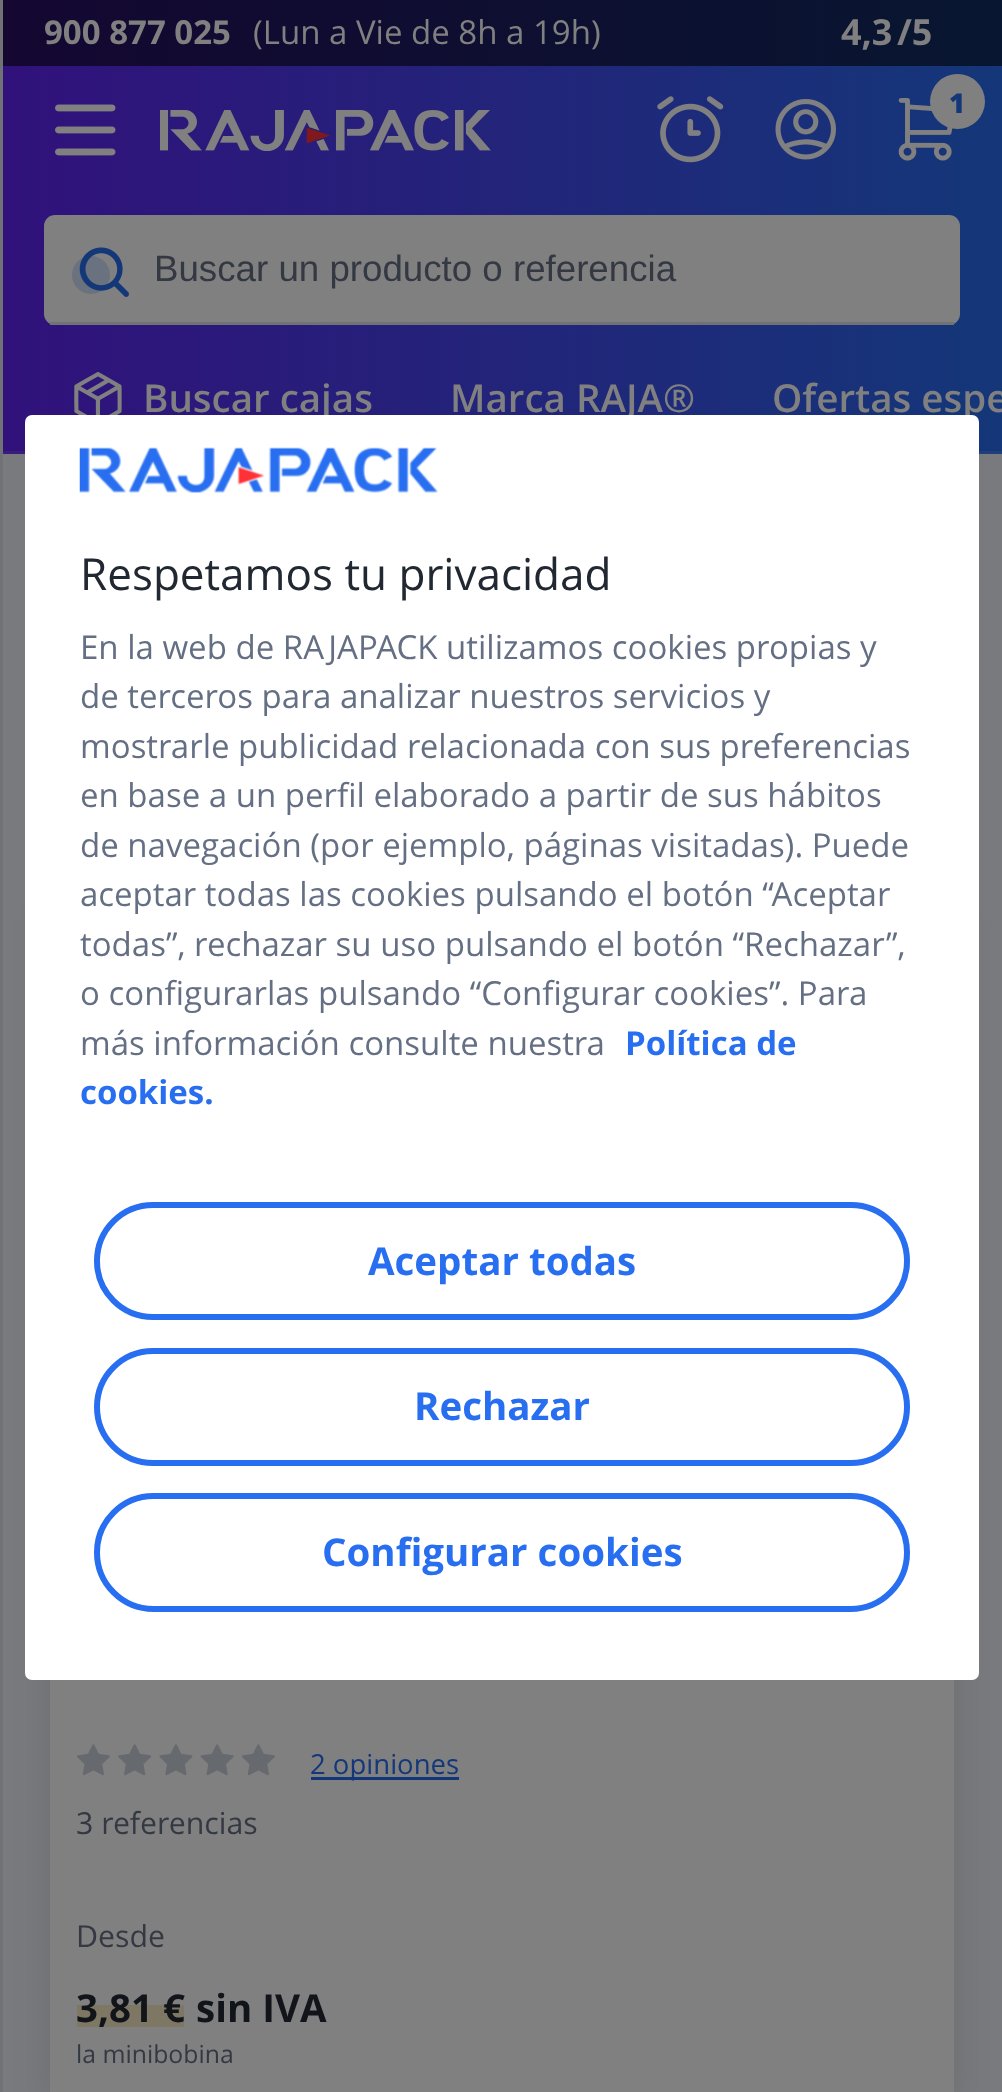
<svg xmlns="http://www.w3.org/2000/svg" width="1002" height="2092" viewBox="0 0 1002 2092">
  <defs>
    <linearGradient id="g1" gradientUnits="userSpaceOnUse" x1="0" y1="226" x2="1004" y2="225"><stop offset="0" stop-color="rgb(57,28,123)"/><stop offset="1" stop-color="rgb(31,63,121)"/></linearGradient>
    <linearGradient id="g2" gradientUnits="userSpaceOnUse" x1="0" y1="226" x2="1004" y2="225"><stop offset="0" stop-color="rgb(49,17,123)"/><stop offset="1" stop-color="rgb(20,55,121)"/></linearGradient>
    <linearGradient id="g3" gradientUnits="userSpaceOnUse" x1="1.4" y1="33" x2="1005" y2="33"><stop offset="0" stop-color="rgb(20,7,49)"/><stop offset="1" stop-color="rgb(8,22,49)"/></linearGradient>
  </defs>
  <rect width="100%" height="100%" fill="rgb(121,122,125)"/>
  <rect x="0" y="451" width="1002" height="3" fill="url(#g1)"/>
  <rect x="50" y="921" width="904" height="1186" fill="rgba(0,0,0,0.1)" filter="blur(19px)"/>
  <rect x="0" y="0" width="3" height="2092" fill="rgb(112,114,117)"/>
  <rect x="3" y="66" width="999" height="385" fill="url(#g2)"/>
  <rect x="3" y="0" width="999" height="66" fill="url(#g3)"/>
  <text x="44" y="44" font-family="Open Sans" font-size="33" font-weight="bold" fill="rgb(128,128,128)">900 877 025</text>
  <text x="253" y="44" font-family="Open Sans" font-size="33" fill="rgb(128,128,128)">(Lun a Vie de 8h a 19h)</text>
  <g font-family="Open Sans" font-size="36" font-weight="bold" fill="rgb(128,128,128)">
    <text x="841" y="45">4,3</text>
    <text x="897" y="45">/5</text>
  </g>
  <image x="55" y="104" width="61" height="52" href="pic1.png"/>
  <image x="160" y="110" width="331" height="41" href="pic2.png"/>
  <image x="657" y="96" width="67" height="67" href="pic3.png"/>
  <image x="775" y="99" width="61" height="61" href="pic4.png"/>
  <image x="898" y="98" width="55" height="63" href="pic5.png"/>
  <circle cx="957.5" cy="101.5" r="27.5" fill="rgb(128,128,128)"/>
  <text x="949" y="113" font-family="Open Sans" font-size="27.5" font-weight="800" fill="rgb(20,55,121)">1</text>
  <rect x="44" y="215" width="916" height="110" rx="11" fill="rgb(128,128,128)"/>
  <circle cx="91" cy="275" r="19" fill="rgb(106,113,127)"/>
  <image x="79" y="247" width="50" height="50" href="pic6.png"/>
  <rect x="50" y="322" width="904" height="3" fill="rgb(112,114,117)"/>
  <text x="154" y="281" font-family="Liberation Sans" font-size="36.7" fill="rgb(51,56,66)">Buscar un producto o referencia</text>
  <image x="74" y="372" width="48" height="43" href="pic7.png"/>
  <g font-family="Open Sans" font-size="38.5" font-weight="600" fill="rgb(128,128,128)">
    <text x="143" y="412">Buscar cajas</text>
    <text x="450" y="412">Marca RAJA®</text>
    <text x="772" y="412">Ofertas espe</text>
  </g>
  <rect x="25" y="415" width="954" height="1265" rx="7" fill="rgb(255,255,255)"/>
  <image x="79" y="447" width="359" height="46" href="pic8.png"/>
  <text x="80" y="590" font-family="Open Sans" font-size="44" fill="rgb(34,40,49)">Respetamos tu privacidad</text>
  <g font-family="Open Sans" font-size="33" fill="rgb(101,111,132)">
    <text>
      <tspan x="80" y="659">En la web de RAJAPACK utilizamos cookies propias y</tspan>
      <tspan x="80" y="708">de terceros para analizar nuestros servicios y</tspan>
      <tspan x="80" y="758">mostrarle publicidad relacionada con sus preferencias</tspan>
      <tspan x="80" y="807">en base a un perfil elaborado a partir de sus hábitos</tspan>
      <tspan x="80" y="857">de navegación (por ejemplo, páginas visitadas). Puede</tspan>
      <tspan x="80" y="906">aceptar todas las cookies pulsando el botón “Aceptar</tspan>
      <tspan x="80" y="956">todas”, rechazar su uso pulsando el botón “Rechazar”,</tspan>
      <tspan x="80" y="1005">o configurarlas pulsando “Configurar cookies”. Para</tspan>
      <tspan x="80" y="1055">más información consulte nuestra</tspan>
    </text>
  </g>
  <g font-family="Open Sans" font-size="33" font-weight="bold" fill="rgb(39,110,241)">
    <text x="625" y="1055">Política de</text>
    <text x="80" y="1104">cookies.</text>
  </g>
  <rect x="97" y="1205" width="810" height="112" rx="56" fill="none" stroke="rgb(39,110,241)" stroke-width="6"/>
  <text x="368" y="1275" font-family="Open Sans" font-size="38.5" font-weight="bold" fill="rgb(39,110,241)">Aceptar todas</text>
  <rect x="97" y="1351" width="810" height="112" rx="56" fill="none" stroke="rgb(39,110,241)" stroke-width="6"/>
  <text x="414" y="1420" font-family="Open Sans" font-size="38.5" font-weight="bold" fill="rgb(39,110,241)">Rechazar</text>
  <rect x="97" y="1496" width="810" height="113" rx="56.5" fill="none" stroke="rgb(39,110,241)" stroke-width="6"/>
  <text x="322" y="1566" font-family="Open Sans" font-size="38.5" font-weight="bold" fill="rgb(39,110,241)">Configurar cookies</text>
  <rect x="50" y="1680" width="904" height="412" fill="rgb(128,128,128)"/>
  <image x="77" y="1744" width="198" height="32" href="pic9.png"/>
  <rect x="311" y="1777" width="148" height="3" fill="rgb(20,55,121)"/>
  <text x="310" y="1774" font-family="Open Sans" font-size="27.5" fill="rgb(20,55,121)">2 opiniones</text>
  <g font-family="Open Sans" font-size="30.25" fill="rgb(51,56,66)">
    <text x="76" y="1834">3 referencias</text>
    <text x="76" y="1947">Desde</text>
  </g>
  <rect x="77" y="2005" width="107" height="22" fill="rgb(126,119,100)"/>
  <g font-family="Open Sans" font-size="38.5" font-weight="bold" fill="rgb(17,20,25)">
    <text x="76" y="2022">3,81 €</text>
    <text x="196" y="2022">sin IVA</text>
  </g>
  <text x="76" y="2063" font-family="Open Sans" font-size="24.75" fill="rgb(51,56,66)">la minibobina</text>
</svg>
